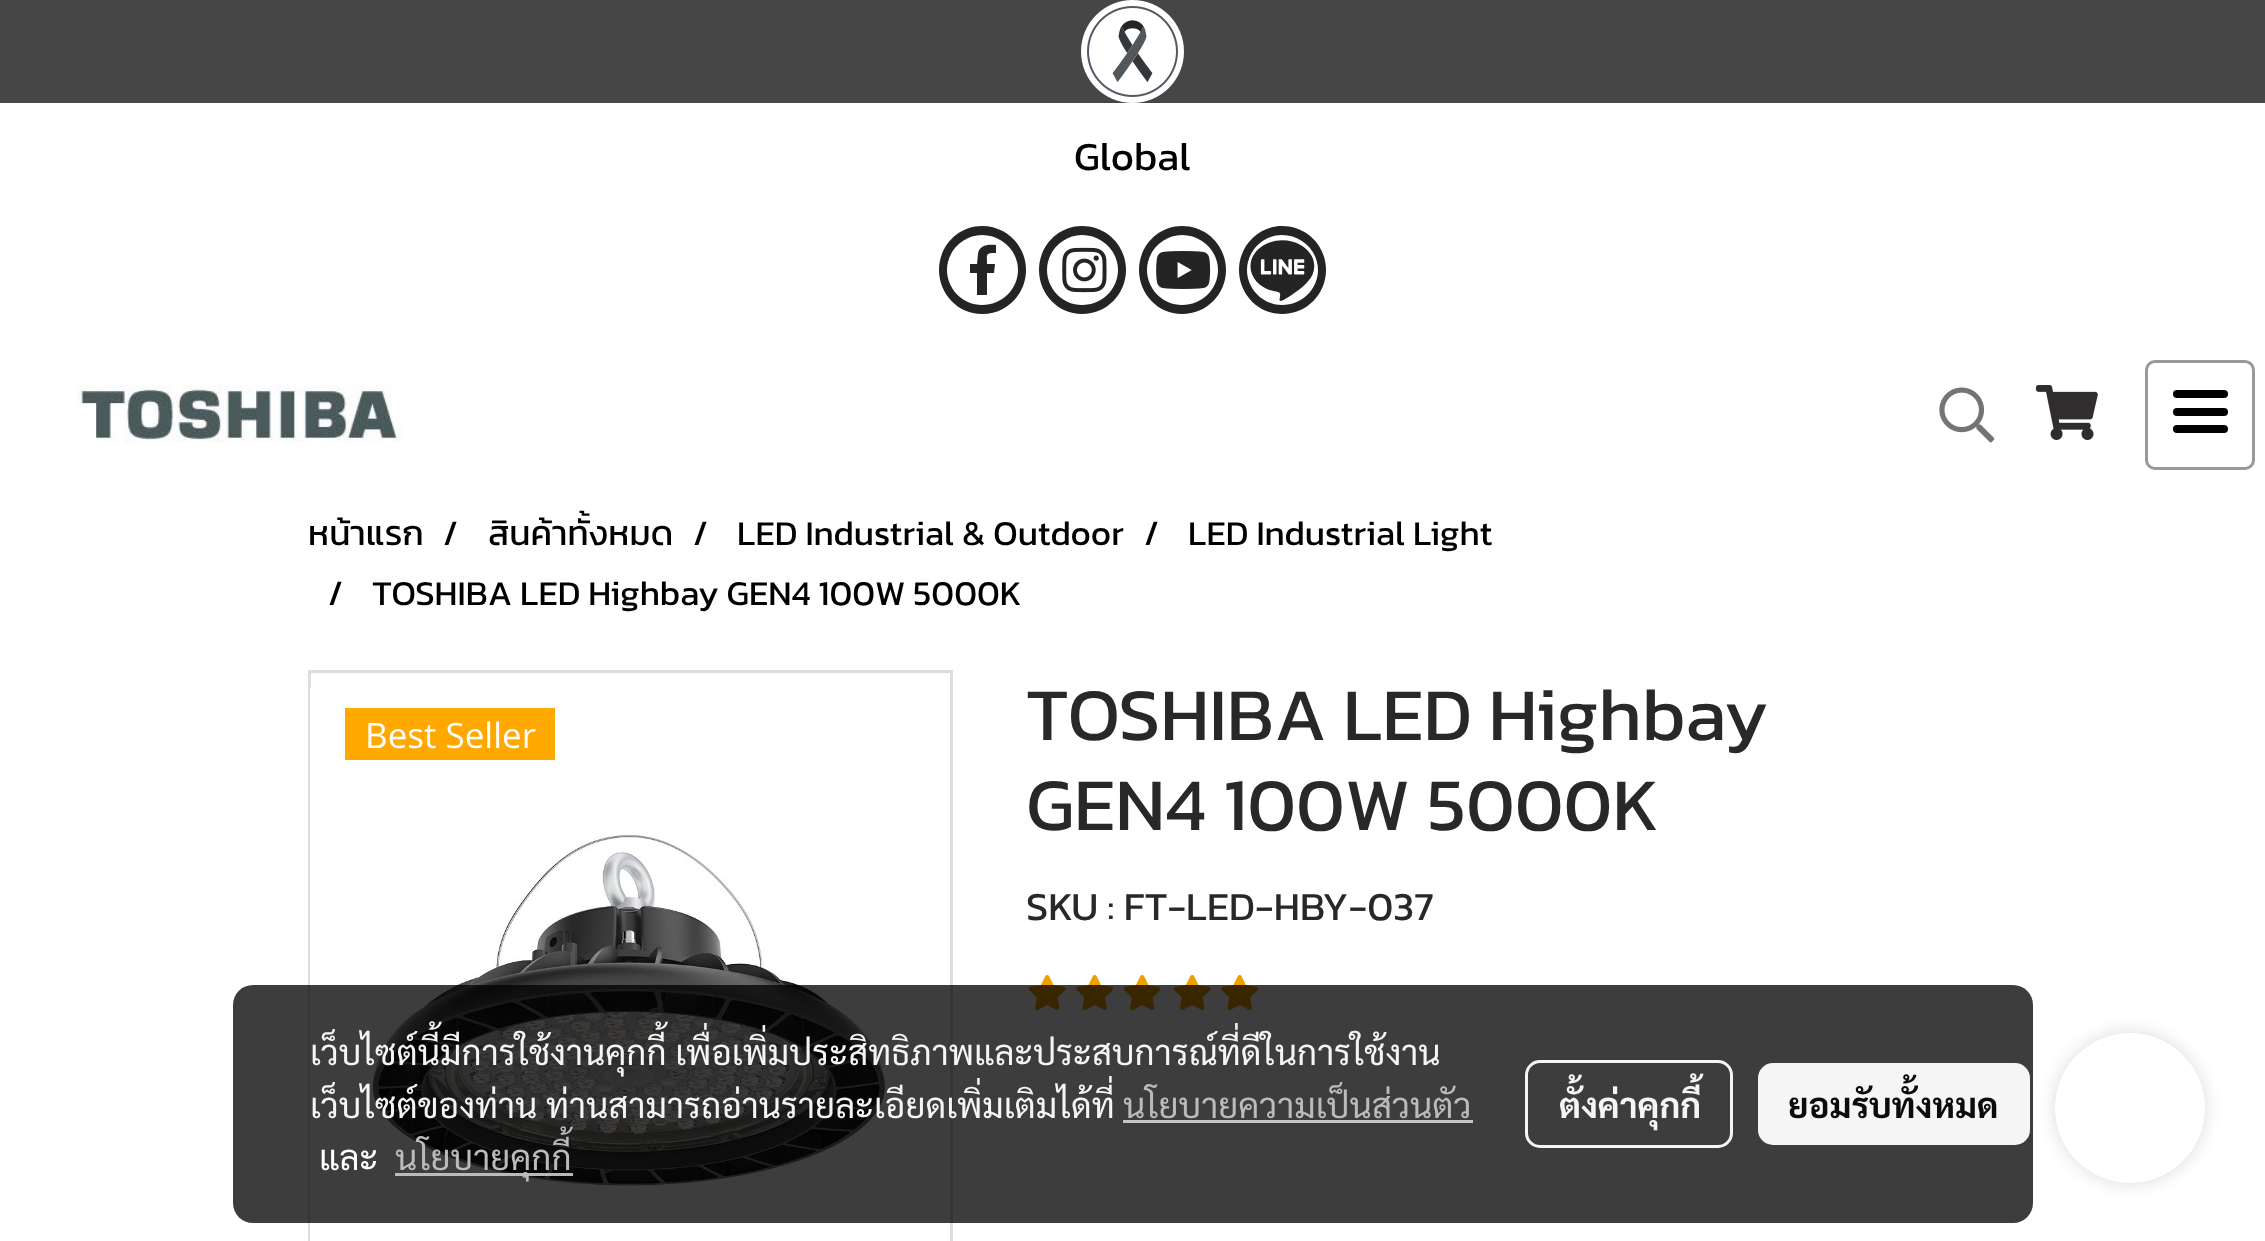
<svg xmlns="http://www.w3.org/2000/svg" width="2265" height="1241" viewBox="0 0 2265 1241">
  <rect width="100%" height="100%" fill="rgb(255,255,255)"/>
  <rect x="0" y="0" width="2265" height="103" fill="rgb(70,70,70)"/>
  <image x="1081" y="0" width="103" height="103" href="pic1.png"/>
  <text x="1074" y="170" font-family="Kanit" font-size="40" fill="rgb(0,0,0)">Global</text>
  <path d="M982 226C958 226 939 246 939 270C939 294 958 314 982 314C1007 314 1026 294 1026 270C1026 246 1007 226 982 226ZM982 305C963 305 947 289 947 270C947 251 963 235 982 235C1002 235 1018 251 1018 270C1018 289 1002 305 982 305Z" fill="rgb(36,36,36)"/>
  <path d="M977 295V273H970V264H977L978 254C979 245 988 244 996 245V253C985 253 987 254 987 264H995L994 273H987V295" fill="rgb(36,36,36)"/>
  <path d="M1082 226C1058 226 1039 246 1039 270C1039 294 1058 314 1082 314C1107 314 1126 294 1126 270C1126 246 1107 226 1082 226ZM1082 305C1063 305 1047 289 1047 270C1047 251 1063 235 1082 235C1102 235 1118 251 1118 270C1118 289 1102 305 1082 305Z" fill="rgb(36,36,36)"/>
  <image x="1062" y="247" width="45" height="46" href="pic2.png"/>
  <path d="M1182 226C1158 226 1139 246 1139 270C1139 294 1158 314 1182 314C1207 314 1226 294 1226 270C1226 246 1207 226 1182 226ZM1182 305C1163 305 1147 289 1147 270C1147 251 1163 235 1182 235C1202 235 1218 251 1218 270C1218 289 1202 305 1182 305Z" fill="rgb(36,36,36)"/>
  <image x="1156" y="251" width="55" height="38" href="pic3.png"/>
  <path d="M1282 226C1258 226 1239 246 1239 270C1239 294 1258 314 1282 314C1307 314 1326 294 1326 270C1326 246 1307 226 1282 226ZM1282 305C1263 305 1247 289 1247 270C1247 251 1263 235 1282 235C1302 235 1318 251 1318 270C1318 289 1302 305 1282 305Z" fill="rgb(36,36,36)"/>
  <image x="1250" y="240" width="65" height="61" href="pic4.png"/>
  <image x="77" y="385" width="325" height="58" href="pic5.png"/>
  <image x="1939" y="387" width="56" height="56" href="pic6.png"/>
  <image x="2035" y="385" width="63" height="55" href="pic7.png"/>
  <rect x="2146.5" y="361.5" width="107" height="107" rx="8.5" fill="none" stroke="rgb(153,153,153)" stroke-width="3"/>
  <rect x="2173" y="408" width="55" height="8" rx="4" fill="rgb(0,0,0)"/>
  <rect x="2173" y="390" width="55" height="8" rx="4" fill="rgb(0,0,0)"/>
  <rect x="2173" y="425" width="55" height="8" rx="4" fill="rgb(0,0,0)"/>
  <g font-family="Kanit" font-size="35" fill="rgb(0,0,0)">
    <text x="308" y="545">หน้าแรก</text>
    <text x="443" y="545">/</text>
    <text x="488" y="545">สินค้าทั้งหมด</text>
    <text x="693" y="545">/</text>
    <text x="737" y="545">LED Industrial &amp; Outdoor</text>
    <text x="1144" y="545">/</text>
    <text x="1188" y="545">LED Industrial Light</text>
    <text x="328" y="605">/</text>
    <text x="372" y="605" word-spacing="-0.25">TOSHIBA LED Highbay GEN4 100W 5000K</text>
  </g>
  <rect x="309.5" y="671.5" width="642" height="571" fill="none" stroke="rgb(221,221,221)" stroke-width="3"/>
  <image x="310" y="687" width="578" height="554" href="pic8.png"/>
  <rect x="345" y="708" width="210" height="52" fill="rgb(255,168,0)"/>
  <text x="365" y="748" font-family="Open Sans" font-size="35" fill="rgb(255,255,255)">Best Seller</text>
  <g font-family="Kanit" font-size="75" fill="rgb(40,40,40)">
    <text>
      <tspan x="1026" y="740" word-spacing="-1">TOSHIBA LED Highbay</tspan>
      <tspan x="1026" y="830">GEN4 100W 5000K</tspan>
    </text>
  </g>
  <text x="1026" y="920" font-family="Kanit" font-size="40" fill="rgb(40,40,40)">SKU : FT-LED-HBY-037</text>
  <image x="1028" y="975" width="38" height="35" href="pic9.png"/>
  <image x="1076" y="975" width="37" height="35" href="pic10.png"/>
  <image x="1123" y="975" width="38" height="35" href="pic9.png"/>
  <image x="1173" y="975" width="38" height="35" href="pic9.png"/>
  <image x="1221" y="975" width="37" height="35" href="pic10.png"/>
  <rect x="2055" y="1033" width="150" height="150" rx="75" fill="rgba(0,0,0,0.14)" filter="blur(9px)"/>
  <rect x="233" y="985" width="1800" height="238" rx="20" fill="rgba(0,0,0,0.76)"/>
  <g font-family="Sarabun" font-size="35" fill="rgb(245,245,245)">
    <text>
      <tspan x="310" y="1065">เว็บไซต์นี้มีการใช้งานคุกกี้ เพื่อเพิ่มประสิทธิภาพและประสบการณ์ที่ดีในการใช้งาน</tspan>
      <tspan x="310" y="1118">เว็บไซต์ของท่าน</tspan>
    </text>
    <text x="546" y="1118">ท่านสามารถอ่านรายละเอียดเพิ่มเติมได้ที่</text>
  </g>
  <text x="1123" y="1118" font-family="Sarabun" font-size="35" fill="rgb(187,187,187)">นโยบายความเป็นส่วนตัว</text>
  <rect x="1123" y="1120" width="350" height="3" fill="rgb(197,197,197)"/>
  <text x="319" y="1170" font-family="Sarabun" font-size="35" fill="rgb(255,255,255)">และ</text>
  <rect x="395" y="1173" width="178" height="3" fill="rgba(194,194,194,0.95)"/>
  <text x="395" y="1170" font-family="Sarabun" font-size="35" fill="rgb(187,187,187)">นโยบายคุกกี้</text>
  <rect x="1526.5" y="1061.5" width="205" height="85" rx="13.5" fill="none" stroke="rgba(255,255,255,0.95)" stroke-width="3"/>
  <text x="1559" y="1118" font-family="Sarabun" font-size="35" font-weight="bold" fill="rgb(245,245,245)">ตั้งค่าคุกกี้</text>
  <rect x="1758" y="1063" width="272" height="82" rx="15" fill="rgba(255,255,255,0.95)"/>
  <text x="1788" y="1118" font-family="Sarabun" font-size="35" font-weight="bold" fill="rgb(12,12,12)">ยอมรับทั้งหมด</text>
  <circle cx="2130" cy="1108" r="75" fill="rgb(255,255,255)"/>
</svg>
